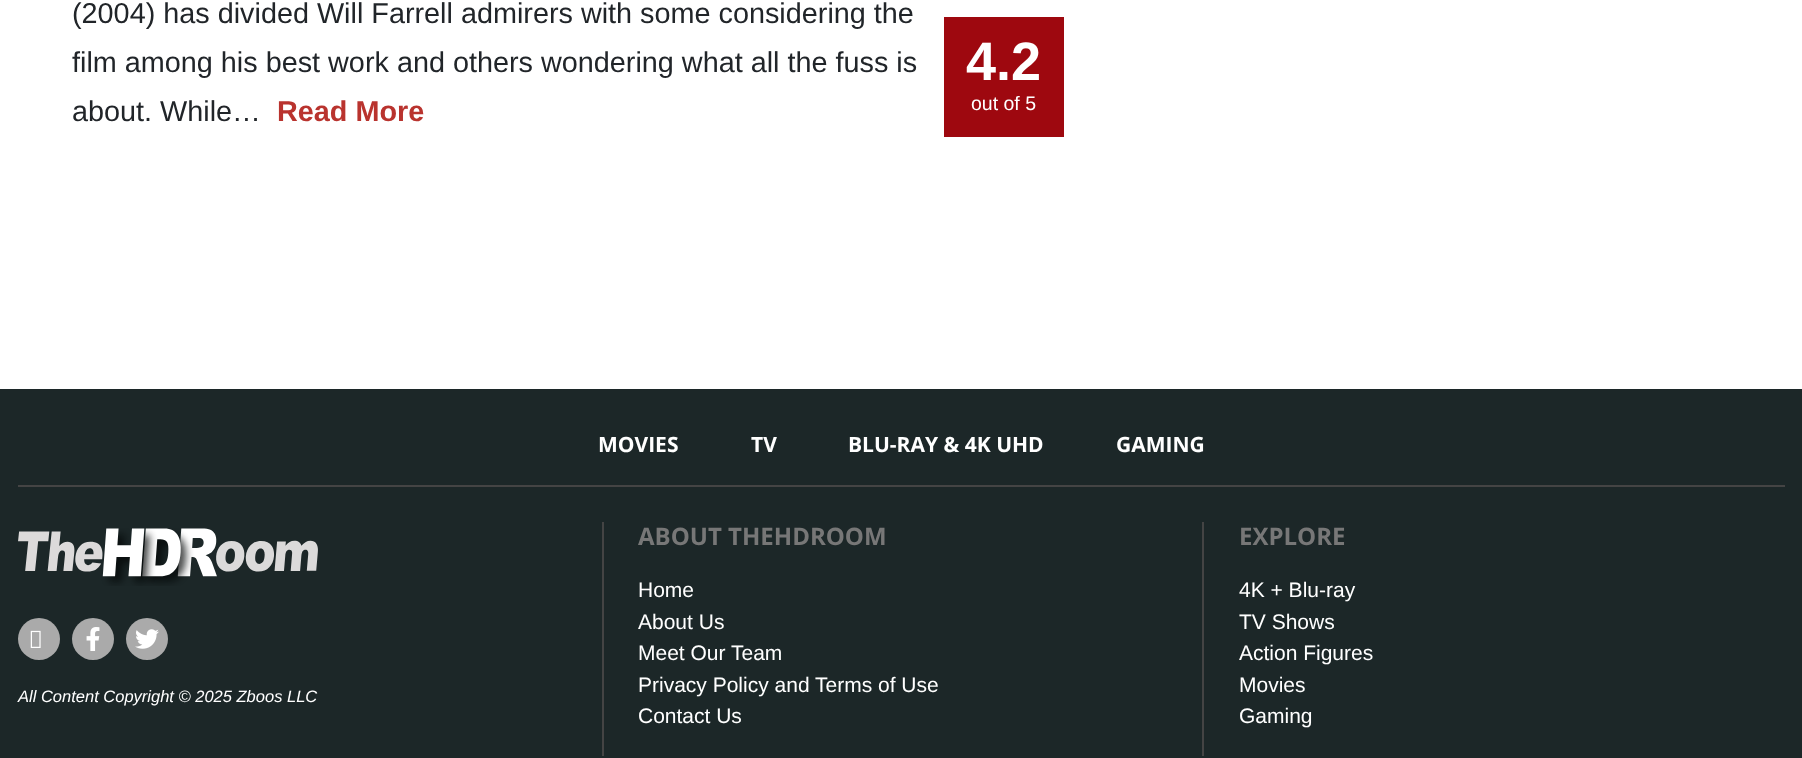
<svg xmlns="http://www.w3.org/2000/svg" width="1802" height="758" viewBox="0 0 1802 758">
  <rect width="100%" height="100%" fill="rgb(255,255,255)"/>
  <g font-family="Liberation Sans" font-size="28.8" fill="rgb(33,37,41)">
    <text>
      <tspan x="72" y="23">(2004) has divided Will Farrell admirers with some considering the</tspan>
      <tspan x="72" y="72">film among his best work and others wondering what all the fuss is</tspan>
      <tspan x="72" y="121">about. While…</tspan>
    </text>
  </g>
  <text x="277" y="121" font-family="Liberation Sans" font-size="28.8" font-weight="bold" fill="rgb(185,51,46)">Read More</text>
  <rect x="944" y="17" width="120" height="120" fill="rgb(158,8,15)"/>
  <text x="966" y="80" font-family="Liberation Sans" font-size="54" font-weight="bold" fill="rgb(255,255,255)">4.2</text>
  <text x="971" y="110" font-family="Liberation Sans" font-size="19.5" fill="rgb(255,255,255)">out of 5</text>
  <rect x="0" y="389" width="1802" height="369" fill="rgb(28,39,40)"/>
  <rect x="18" y="485" width="1767" height="2" fill="rgb(68,68,68)"/>
  <g font-family="Open Sans" font-size="21" font-weight="bold" fill="rgb(255,255,255)">
    <text x="598" y="452">MOVIES</text>
    <text x="751" y="452">TV</text>
    <text x="848" y="452">BLU-RAY &amp; 4K UHD</text>
    <text x="1116" y="452">GAMING</text>
  </g>
  <image x="18" y="528" width="300" height="58" href="pic1.png"/>
  <circle cx="39" cy="639" r="21" fill="rgb(170,170,170)"/>
  <image x="30" y="630" width="11" height="18" href="pic2.png"/>
  <circle cx="93" cy="639" r="21" fill="rgb(170,170,170)"/>
  <image x="86" y="627" width="14" height="24" href="pic3.png"/>
  <circle cx="147" cy="639" r="21" fill="rgb(170,170,170)"/>
  <image x="135" y="629" width="24" height="20" href="pic4.png"/>
  <text x="18" y="702" font-family="Liberation Sans" font-size="16.5" font-style="italic" fill="rgb(255,255,255)">All Content Copyright © 2025 Zboos LLC</text>
  <rect x="602" y="522" width="2" height="234" fill="rgb(68,68,68)"/>
  <text x="638" y="545" font-family="Open Sans" font-size="24" font-weight="bold" fill="rgb(119,119,119)">ABOUT THEHDROOM</text>
  <g font-family="Liberation Sans" font-size="21" fill="rgb(255,255,255)">
    <text>
      <tspan x="638" y="597">Home</tspan>
      <tspan x="638" y="629">About Us</tspan>
      <tspan x="638" y="660">Meet Our Team</tspan>
      <tspan x="638" y="692">Privacy Policy and Terms of Use</tspan>
      <tspan x="638" y="723">Contact Us</tspan>
    </text>
  </g>
  <rect x="1202" y="522" width="2" height="234" fill="rgb(68,68,68)"/>
  <text x="1239" y="545" font-family="Open Sans" font-size="24" font-weight="bold" fill="rgb(119,119,119)">EXPLORE</text>
  <g font-family="Liberation Sans" font-size="21" fill="rgb(255,255,255)">
    <text>
      <tspan x="1239" y="597">4K + Blu-ray</tspan>
      <tspan x="1239" y="629">TV Shows</tspan>
      <tspan x="1239" y="660">Action Figures</tspan>
      <tspan x="1239" y="692">Movies</tspan>
      <tspan x="1239" y="723">Gaming</tspan>
    </text>
  </g>
</svg>
